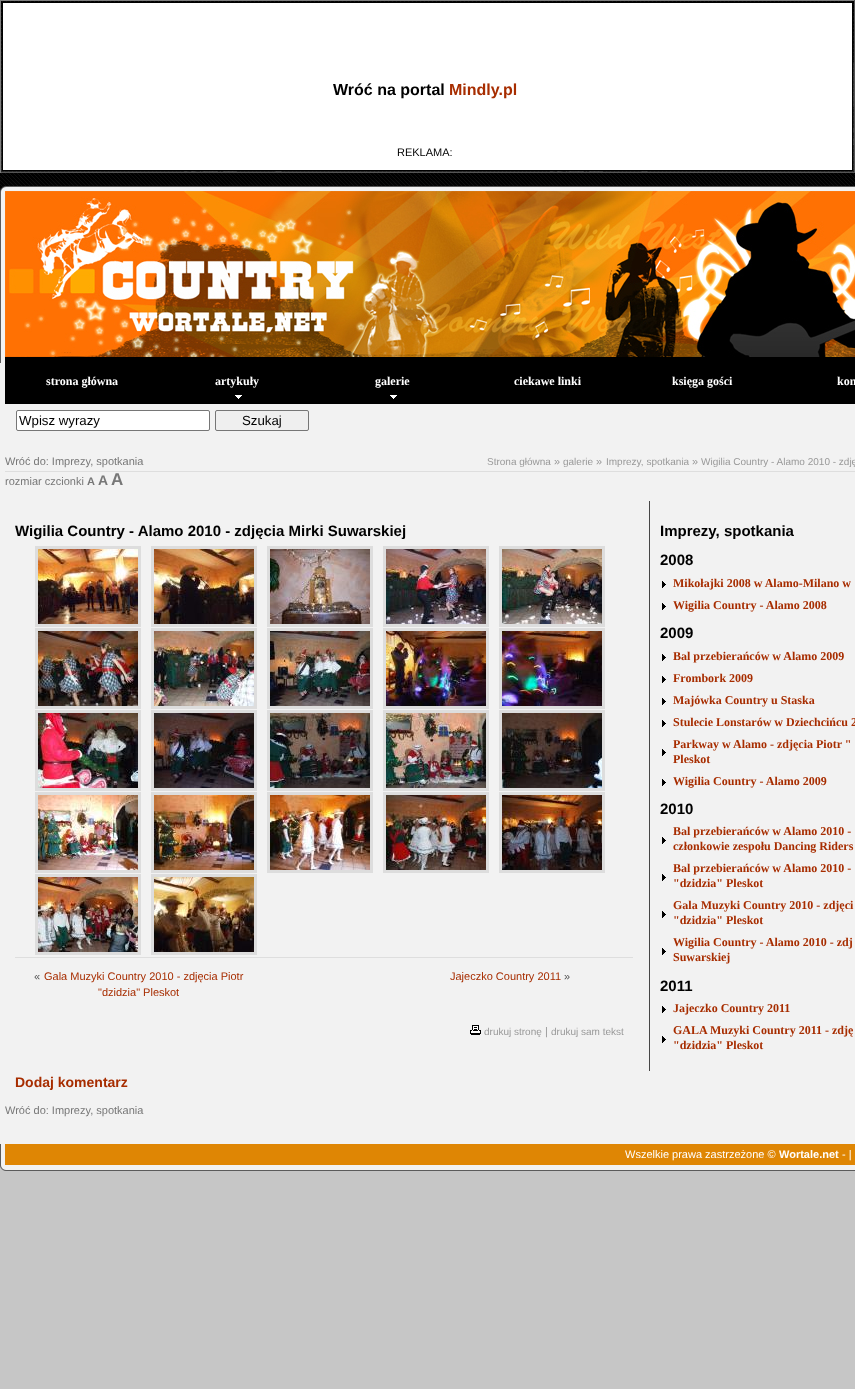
<svg xmlns="http://www.w3.org/2000/svg" width="855" height="1389" viewBox="0 0 855 1389">
  <rect width="100%" height="100%" fill="rgb(198,198,198)"/>
  <image x="1" y="1" width="853" height="171" href="pic1.png"/>
  <rect x="0" y="0" width="855" height="1" fill="rgb(128,128,128)"/>
  <rect x="854" y="0" width="1" height="173" fill="rgb(85,85,85)"/>
  <rect x="0" y="172" width="855" height="1" fill="rgb(85,85,85)"/>
  <rect x="0" y="0" width="1" height="173" fill="rgb(128,128,128)"/>
  <rect x="2.5" y="2.5" width="850" height="168" fill="rgb(255,255,255)" stroke="rgb(0,0,0)"/>
  <text x="333" y="95" font-family="Liberation Sans" font-size="16" font-weight="bold" fill="rgb(0,0,0)">Wróć na portal</text>
  <text x="449" y="95" font-family="Liberation Sans" font-size="16" font-weight="bold" fill="rgb(167,45,0)">Mindly.pl</text>
  <text x="397" y="156" font-family="Liberation Sans" font-size="11" fill="rgb(0,0,0)">REKLAMA:</text>
  <image x="0" y="173" width="855" height="190" href="pic2.png"/>
  <rect x="0" y="363" width="5" height="40" fill="rgb(242,242,242)"/>
  <rect x="0" y="403" width="855" height="741" fill="rgb(242,242,242)"/>
  <rect x="5" y="363" width="850" height="41" fill="rgb(0,0,0)"/>
  <g font-family="Liberation Serif" font-size="12" font-weight="bold" fill="rgb(255,255,255)">
    <text x="46" y="385">strona główna</text>
    <text x="215" y="385">artykuły</text>
  </g>
  <image x="235" y="395" width="7" height="4" href="pic3.png"/>
  <text x="375" y="385" font-family="Liberation Serif" font-size="12" font-weight="bold" fill="rgb(255,255,255)">galerie</text>
  <image x="390" y="395" width="7" height="4" href="pic3.png"/>
  <g font-family="Liberation Serif" font-size="12" font-weight="bold" fill="rgb(255,255,255)">
    <text x="514" y="385">ciekawe linki</text>
    <text x="672" y="385">księga gości</text>
    <text x="837" y="385">kon</text>
  </g>
  <rect x="16.5" y="410.5" width="193" height="20" rx="1.5" fill="rgb(255,255,255)" stroke="rgb(118,118,118)"/>
  <text x="19" y="425" font-family="Liberation Sans" font-size="13.25" fill="rgb(0,0,0)">Wpisz wyrazy</text>
  <rect x="215.5" y="410.5" width="93" height="20" rx="1.5" fill="rgb(239,239,239)" stroke="rgb(118,118,118)"/>
  <text x="242" y="425" font-family="Liberation Sans" font-size="13.25" fill="rgb(0,0,0)">Szukaj</text>
  <text x="5" y="465" font-family="Liberation Sans" font-size="11" fill="rgb(119,119,119)">Wróć do: Imprezy, spotkania</text>
  <text x="487" y="465" font-family="Liberation Sans" font-size="10" fill="rgb(153,153,153)">Strona główna</text>
  <text x="554" y="465" font-family="Liberation Sans" font-size="11" fill="rgb(153,153,153)">»</text>
  <text x="563" y="465" font-family="Liberation Sans" font-size="10" fill="rgb(153,153,153)">galerie</text>
  <text x="596" y="465" font-family="Liberation Sans" font-size="11" fill="rgb(153,153,153)">»</text>
  <text x="606" y="465" font-family="Liberation Sans" font-size="10" fill="rgb(153,153,153)">Imprezy, spotkania</text>
  <text x="692" y="465" font-family="Liberation Sans" font-size="11" fill="rgb(153,153,153)">»</text>
  <text x="701" y="465" font-family="Liberation Sans" font-size="10" fill="rgb(153,153,153)">Wigilia Country - Alamo 2010 - zdję</text>
  <rect x="5" y="471" width="850" height="1" fill="rgb(222,222,222)"/>
  <text x="5" y="485" font-family="Liberation Sans" font-size="11" fill="rgb(119,119,119)">rozmiar czcionki</text>
  <text x="87" y="485" font-family="Liberation Sans" font-size="11" font-weight="bold" fill="rgb(119,119,119)">A</text>
  <text x="98" y="485" font-family="Liberation Sans" font-size="14" font-weight="bold" fill="rgb(119,119,119)">A</text>
  <text x="111" y="485" font-family="Liberation Sans" font-size="17" font-weight="bold" fill="rgb(119,119,119)">A</text>
  <text x="15" y="536" font-family="Liberation Sans" font-size="15" font-weight="bold" fill="rgb(0,0,0)">Wigilia Country - Alamo 2010 - zdjęcia Mirki Suwarskiej</text>
  <rect x="36.5" y="547.5" width="103" height="78" fill="none" stroke="rgb(221,221,221)" stroke-width="3"/>
  <image x="38" y="549" width="100" height="75" href="pic4.png"/>
  <rect x="152.5" y="547.5" width="103" height="78" fill="none" stroke="rgb(221,221,221)" stroke-width="3"/>
  <image x="154" y="549" width="100" height="75" href="pic5.png"/>
  <rect x="268.5" y="547.5" width="103" height="78" fill="none" stroke="rgb(221,221,221)" stroke-width="3"/>
  <image x="270" y="549" width="100" height="75" href="pic6.png"/>
  <rect x="384.5" y="547.5" width="103" height="78" fill="none" stroke="rgb(221,221,221)" stroke-width="3"/>
  <image x="386" y="549" width="100" height="75" href="pic7.png"/>
  <rect x="500.5" y="547.5" width="103" height="78" fill="none" stroke="rgb(221,221,221)" stroke-width="3"/>
  <image x="502" y="549" width="100" height="75" href="pic8.png"/>
  <rect x="36.5" y="629.5" width="103" height="78" fill="none" stroke="rgb(221,221,221)" stroke-width="3"/>
  <image x="38" y="631" width="100" height="75" href="pic9.png"/>
  <rect x="152.5" y="629.5" width="103" height="78" fill="none" stroke="rgb(221,221,221)" stroke-width="3"/>
  <image x="154" y="631" width="100" height="75" href="pic10.png"/>
  <rect x="268.5" y="629.5" width="103" height="78" fill="none" stroke="rgb(221,221,221)" stroke-width="3"/>
  <image x="270" y="631" width="100" height="75" href="pic11.png"/>
  <rect x="384.5" y="629.5" width="103" height="78" fill="none" stroke="rgb(221,221,221)" stroke-width="3"/>
  <image x="386" y="631" width="100" height="75" href="pic12.png"/>
  <rect x="500.5" y="629.5" width="103" height="78" fill="none" stroke="rgb(221,221,221)" stroke-width="3"/>
  <image x="502" y="631" width="100" height="75" href="pic13.png"/>
  <rect x="36.5" y="711.5" width="103" height="78" fill="none" stroke="rgb(221,221,221)" stroke-width="3"/>
  <image x="38" y="713" width="100" height="75" href="pic14.png"/>
  <rect x="152.5" y="711.5" width="103" height="78" fill="none" stroke="rgb(221,221,221)" stroke-width="3"/>
  <image x="154" y="713" width="100" height="75" href="pic15.png"/>
  <rect x="268.5" y="711.5" width="103" height="78" fill="none" stroke="rgb(221,221,221)" stroke-width="3"/>
  <image x="270" y="713" width="100" height="75" href="pic16.png"/>
  <rect x="384.5" y="711.5" width="103" height="78" fill="none" stroke="rgb(221,221,221)" stroke-width="3"/>
  <image x="386" y="713" width="100" height="75" href="pic17.png"/>
  <rect x="500.5" y="711.5" width="103" height="78" fill="none" stroke="rgb(221,221,221)" stroke-width="3"/>
  <image x="502" y="713" width="100" height="75" href="pic18.png"/>
  <rect x="36.5" y="793.5" width="103" height="78" fill="none" stroke="rgb(221,221,221)" stroke-width="3"/>
  <image x="38" y="795" width="100" height="75" href="pic19.png"/>
  <rect x="152.5" y="793.5" width="103" height="78" fill="none" stroke="rgb(221,221,221)" stroke-width="3"/>
  <image x="154" y="795" width="100" height="75" href="pic20.png"/>
  <rect x="268.5" y="793.5" width="103" height="78" fill="none" stroke="rgb(221,221,221)" stroke-width="3"/>
  <image x="270" y="795" width="100" height="75" href="pic21.png"/>
  <rect x="384.5" y="793.5" width="103" height="78" fill="none" stroke="rgb(221,221,221)" stroke-width="3"/>
  <image x="386" y="795" width="100" height="75" href="pic22.png"/>
  <rect x="500.5" y="793.5" width="103" height="78" fill="none" stroke="rgb(221,221,221)" stroke-width="3"/>
  <image x="502" y="795" width="100" height="75" href="pic23.png"/>
  <rect x="36.5" y="875.5" width="103" height="78" fill="none" stroke="rgb(221,221,221)" stroke-width="3"/>
  <image x="38" y="877" width="100" height="75" href="pic24.png"/>
  <rect x="152.5" y="875.5" width="103" height="78" fill="none" stroke="rgb(221,221,221)" stroke-width="3"/>
  <image x="154" y="877" width="100" height="75" href="pic25.png"/>
  <rect x="15" y="957" width="618" height="1" fill="rgb(222,222,222)"/>
  <text x="34" y="980" font-family="Liberation Sans" font-size="11" fill="rgb(85,85,85)">«</text>
  <g font-family="Liberation Sans" font-size="11" fill="rgb(167,45,0)">
    <text x="44" y="980">Gala Muzyki Country 2010 - zdjęcia Piotr</text>
    <text x="98" y="996">"dzidzia" Pleskot</text>
    <text x="450" y="980">Jajeczko Country 2011</text>
  </g>
  <text x="564" y="980" font-family="Liberation Sans" font-size="11" fill="rgb(85,85,85)">»</text>
  <image x="470" y="1025" width="11" height="10" href="pic26.png"/>
  <text x="484" y="1035" font-family="Liberation Sans" font-size="10" fill="rgb(153,153,153)">drukuj stronę</text>
  <text x="545" y="1035" font-family="Liberation Sans" font-size="11" fill="rgb(153,153,153)">|</text>
  <text x="551" y="1035" font-family="Liberation Sans" font-size="10" fill="rgb(153,153,153)">drukuj sam tekst</text>
  <text x="15" y="1087" font-family="Liberation Sans" font-size="14" font-weight="bold" fill="rgb(167,45,0)">Dodaj komentarz</text>
  <rect x="649" y="501" width="1" height="570" fill="rgb(71,71,71)"/>
  <g font-family="Liberation Sans" font-size="15" font-weight="bold" fill="rgb(0,0,0)">
    <text>
      <tspan x="660" y="536">Imprezy, spotkania</tspan>
      <tspan x="660" y="565">2008</tspan>
    </text>
  </g>
  <image x="662" y="581" width="4" height="7" href="pic27.png"/>
  <text x="673" y="587" font-family="Liberation Serif" font-size="12" font-weight="bold" fill="rgb(167,45,0)">Mikołajki 2008 w Alamo-Milano w</text>
  <image x="662" y="603" width="4" height="7" href="pic27.png"/>
  <text x="673" y="609" font-family="Liberation Serif" font-size="12" font-weight="bold" fill="rgb(167,45,0)">Wigilia Country - Alamo 2008</text>
  <text x="660" y="638" font-family="Liberation Sans" font-size="15" font-weight="bold" fill="rgb(0,0,0)">2009</text>
  <image x="662" y="654" width="4" height="7" href="pic27.png"/>
  <text x="673" y="660" font-family="Liberation Serif" font-size="12" font-weight="bold" fill="rgb(167,45,0)">Bal przebierańców w Alamo 2009</text>
  <image x="662" y="676" width="4" height="7" href="pic27.png"/>
  <text x="673" y="682" font-family="Liberation Serif" font-size="12" font-weight="bold" fill="rgb(167,45,0)">Frombork 2009</text>
  <image x="662" y="698" width="4" height="7" href="pic27.png"/>
  <text x="673" y="704" font-family="Liberation Serif" font-size="12" font-weight="bold" fill="rgb(167,45,0)">Majówka Country u Staska</text>
  <image x="662" y="720" width="4" height="7" href="pic27.png"/>
  <text x="673" y="726" font-family="Liberation Serif" font-size="12" font-weight="bold" fill="rgb(167,45,0)">Stulecie Lonstarów w Dziechcińcu 2</text>
  <image x="662" y="749" width="4" height="7" href="pic27.png"/>
  <g font-family="Liberation Serif" font-size="12" font-weight="bold" fill="rgb(167,45,0)">
    <text>
      <tspan x="673" y="748">Parkway w Alamo - zdjęcia Piotr "</tspan>
      <tspan x="673" y="763">Pleskot</tspan>
    </text>
  </g>
  <image x="662" y="779" width="4" height="7" href="pic27.png"/>
  <text x="673" y="785" font-family="Liberation Serif" font-size="12" font-weight="bold" fill="rgb(167,45,0)">Wigilia Country - Alamo 2009</text>
  <text x="660" y="814" font-family="Liberation Sans" font-size="15" font-weight="bold" fill="rgb(0,0,0)">2010</text>
  <image x="662" y="837" width="4" height="7" href="pic27.png"/>
  <g font-family="Liberation Serif" font-size="12" font-weight="bold" fill="rgb(167,45,0)">
    <text>
      <tspan x="673" y="835">Bal przebierańców w Alamo 2010 -</tspan>
      <tspan x="673" y="850">członkowie zespołu Dancing Riders</tspan>
    </text>
  </g>
  <image x="662" y="874" width="4" height="7" href="pic27.png"/>
  <g font-family="Liberation Serif" font-size="12" font-weight="bold" fill="rgb(167,45,0)">
    <text>
      <tspan x="673" y="872">Bal przebierańców w Alamo 2010 -</tspan>
      <tspan x="673" y="887">"dzidzia" Pleskot</tspan>
    </text>
  </g>
  <image x="662" y="911" width="4" height="7" href="pic27.png"/>
  <g font-family="Liberation Serif" font-size="12" font-weight="bold" fill="rgb(167,45,0)">
    <text>
      <tspan x="673" y="909">Gala Muzyki Country 2010 - zdjęci</tspan>
      <tspan x="673" y="924">"dzidzia" Pleskot</tspan>
    </text>
  </g>
  <image x="662" y="948" width="4" height="7" href="pic27.png"/>
  <g font-family="Liberation Serif" font-size="12" font-weight="bold" fill="rgb(167,45,0)">
    <text>
      <tspan x="673" y="946">Wigilia Country - Alamo 2010 - zdj</tspan>
      <tspan x="673" y="961">Suwarskiej</tspan>
    </text>
  </g>
  <text x="660" y="991" font-family="Liberation Sans" font-size="15" font-weight="bold" fill="rgb(0,0,0)">2011</text>
  <image x="662" y="1006" width="4" height="7" href="pic27.png"/>
  <text x="673" y="1012" font-family="Liberation Serif" font-size="12" font-weight="bold" fill="rgb(167,45,0)">Jajeczko Country 2011</text>
  <image x="662" y="1036" width="4" height="7" href="pic27.png"/>
  <g font-family="Liberation Serif" font-size="12" font-weight="bold" fill="rgb(167,45,0)">
    <text>
      <tspan x="673" y="1034">GALA Muzyki Country 2011 - zdję</tspan>
      <tspan x="673" y="1049">"dzidzia" Pleskot</tspan>
    </text>
  </g>
  <text x="5" y="1114" font-family="Liberation Sans" font-size="11" fill="rgb(119,119,119)">Wróć do: Imprezy, spotkania</text>
  <image x="0" y="1144" width="855" height="27" href="pic28.png"/>
  <text x="625" y="1158" font-family="Liberation Sans" font-size="11" fill="rgb(255,255,255)">Wszelkie prawa zastrzeżone ©</text>
  <text x="779" y="1158" font-family="Liberation Sans" font-size="11" font-weight="bold" fill="rgb(255,255,255)">Wortale.net</text>
  <text x="842" y="1158" font-family="Liberation Sans" font-size="11" fill="rgb(255,255,255)">- |</text>
</svg>
